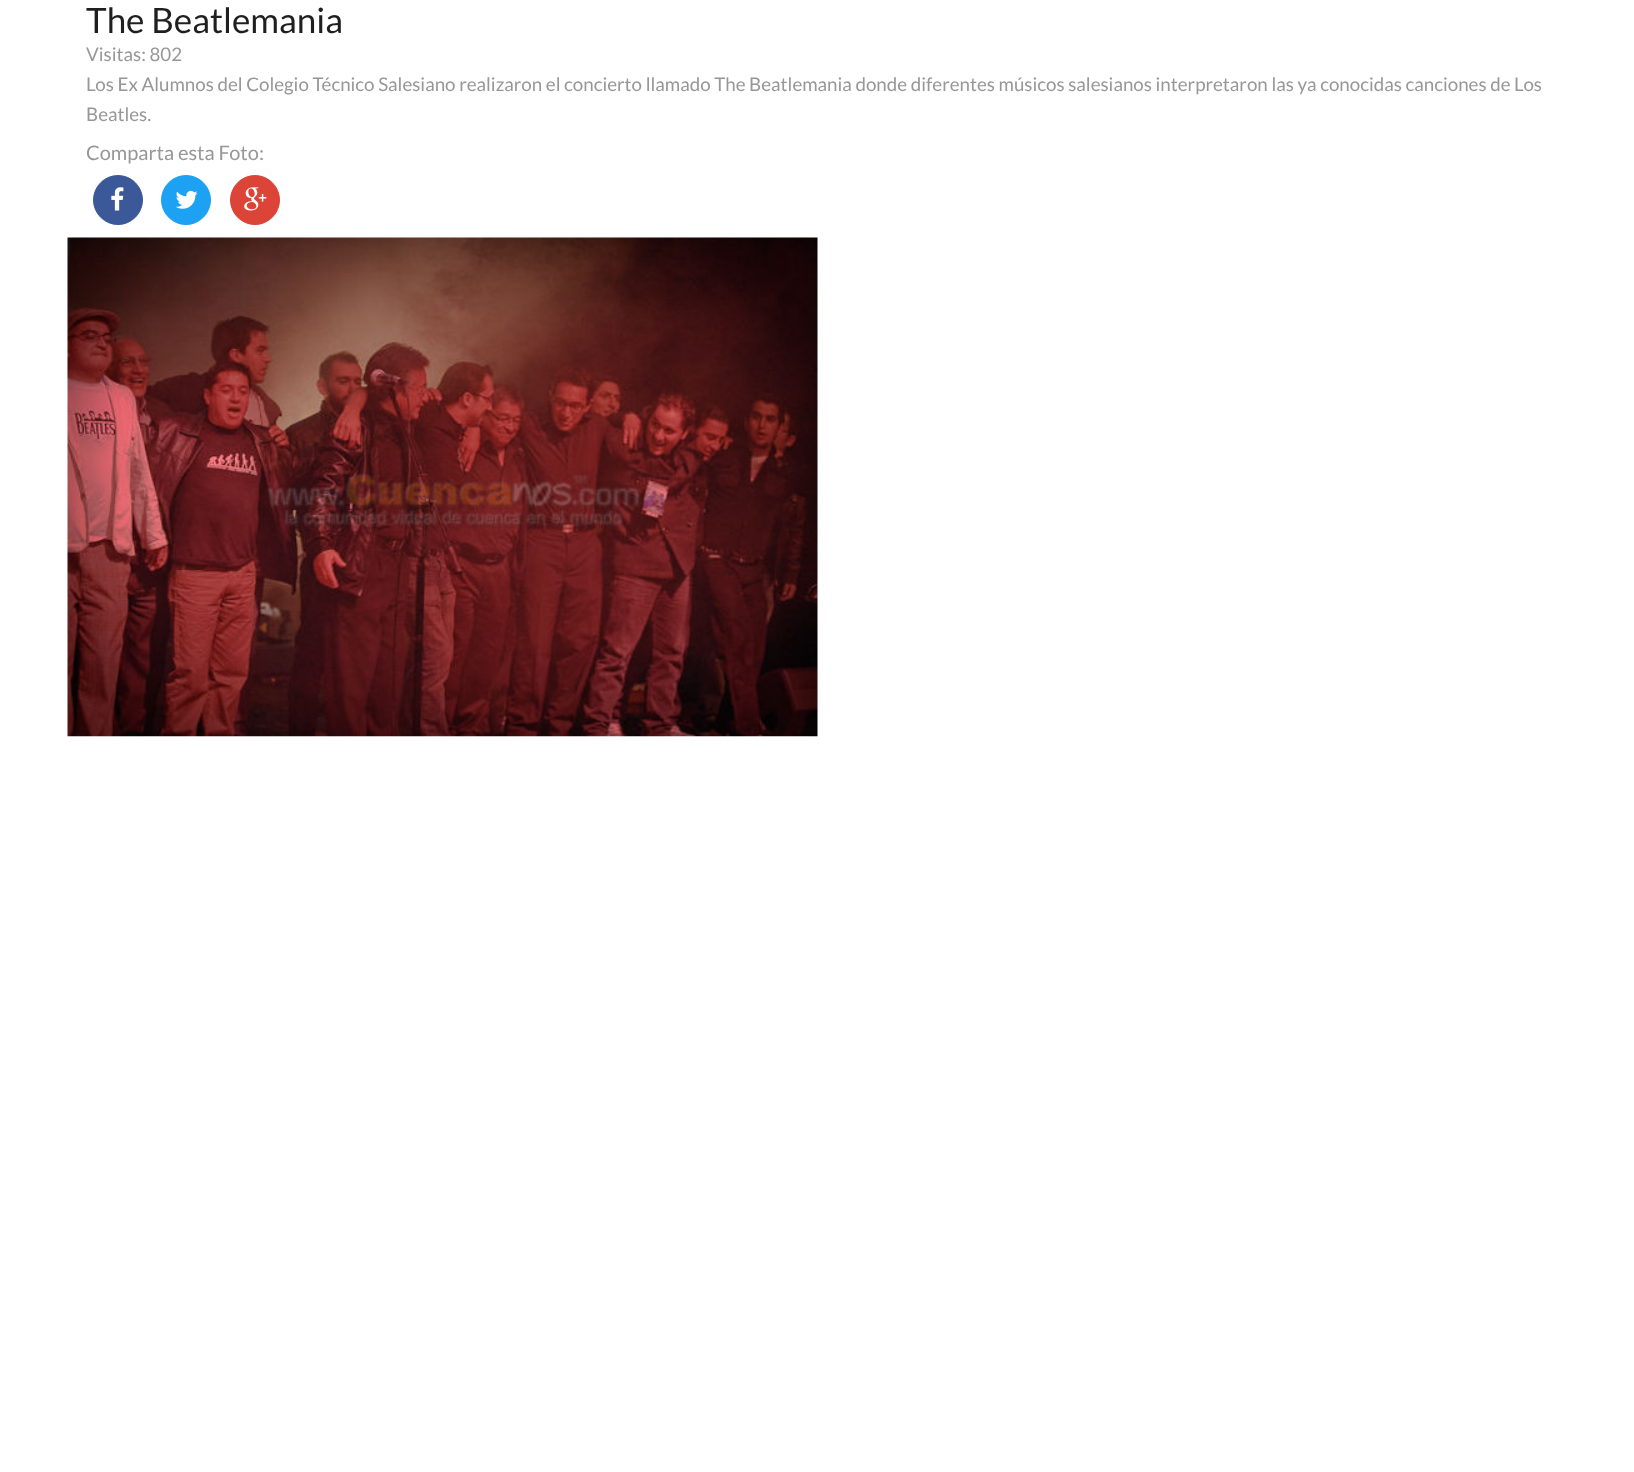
<svg xmlns="http://www.w3.org/2000/svg" width="1634" height="1472" viewBox="0 0 1634 1472">
  <rect width="100%" height="100%" fill="rgb(255,255,255)"/>
  <text x="86" y="33" font-family="Lato" font-size="35" fill="rgb(31,31,31)">The Beatlemania</text>
  <g font-family="Lato" font-size="18.75" fill="rgb(151,151,151)">
    <text>
      <tspan x="86" y="61">Visitas: 802</tspan>
      <tspan x="86" y="91">Los Ex Alumnos del Colegio Técnico Salesiano realizaron el concierto llamado The Beatlemania donde diferentes músicos salesianos interpretaron las ya conocidas canciones de Los</tspan>
      <tspan x="86" y="121">Beatles.</tspan>
    </text>
  </g>
  <text x="86" y="160" font-family="Lato" font-size="20" fill="rgb(151,151,151)">Comparta esta Foto:</text>
  <circle cx="118" cy="200" r="24.5" fill="rgb(59,89,152)" stroke="rgb(59,89,152)"/>
  <image x="111" y="187" width="13" height="24" href="pic1.png"/>
  <circle cx="186" cy="200" r="24.5" fill="rgb(29,161,242)" stroke="rgb(29,161,242)"/>
  <image x="175" y="190" width="23" height="19" href="pic2.png"/>
  <circle cx="255" cy="200" r="24.5" fill="rgb(219,68,55)" stroke="rgb(219,68,55)"/>
  <image x="244" y="187" width="23" height="24" href="pic3.png"/>
  <image x="67" y="237" width="751" height="500" href="pic4.png"/>
</svg>
